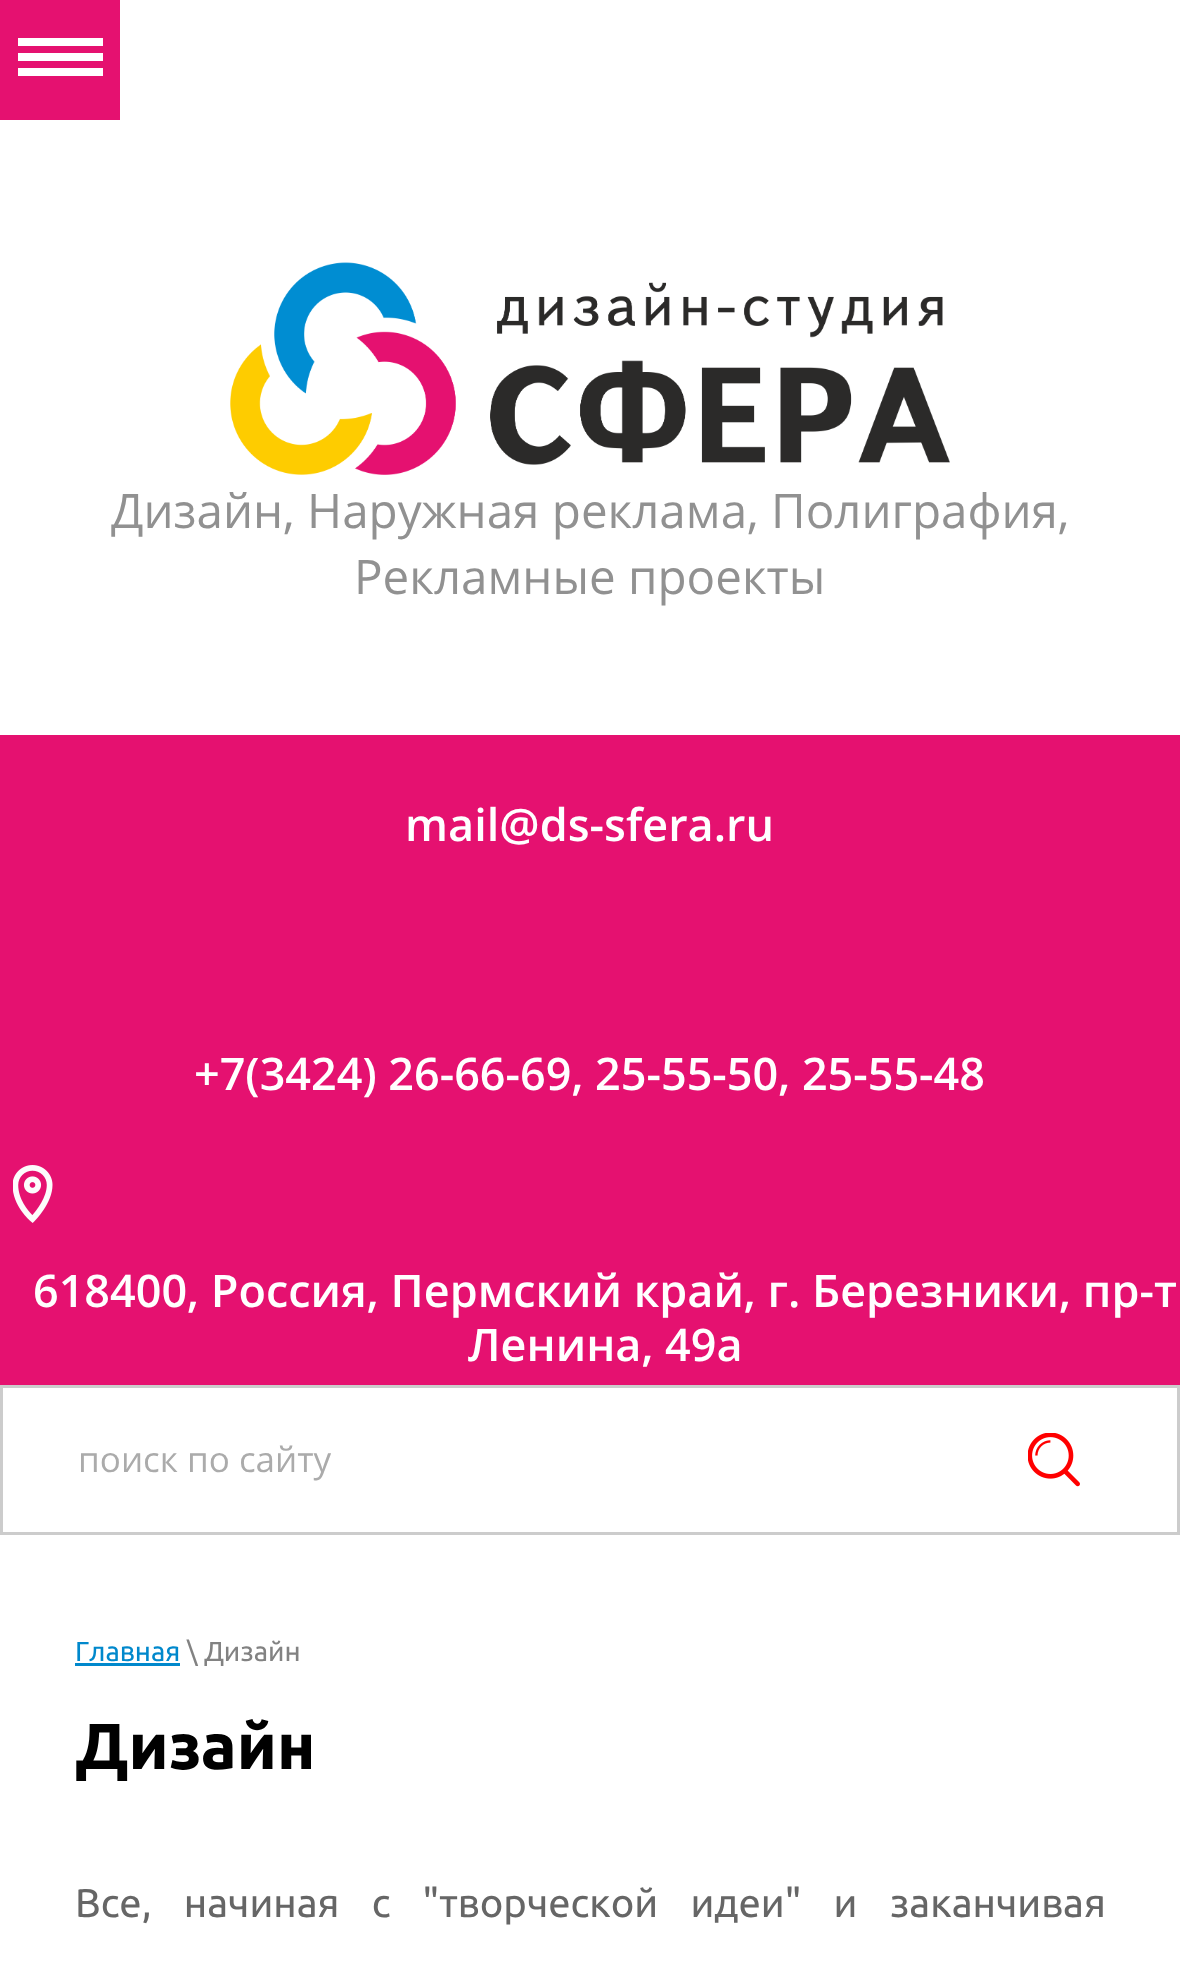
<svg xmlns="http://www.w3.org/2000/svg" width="1180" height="1977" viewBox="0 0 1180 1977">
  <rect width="100%" height="100%" fill="rgb(255,255,255)"/>
  <rect x="0" y="0" width="120" height="120" fill="rgb(229,17,112)"/>
  <rect x="18" y="38" width="85" height="8" fill="rgb(255,255,255)"/>
  <rect x="18" y="53" width="85" height="8" fill="rgb(255,255,255)"/>
  <rect x="18" y="68" width="85" height="8" fill="rgb(255,255,255)"/>
  <rect x="0" y="735" width="1180" height="650" fill="rgb(229,17,112)"/>
  <image x="230" y="262" width="720" height="213" href="pic1.png"/>
  <g font-family="Open Sans" font-size="47.5" fill="rgb(145,145,145)">
    <text x="111" y="528">Дизайн, Наружная реклама, Полиграфия,</text>
    <text x="354" y="594">Рекламные проекты</text>
  </g>
  <text x="405" y="841" font-family="Open Sans" font-size="45" font-weight="600" fill="rgb(255,255,255)">mail@ds-sfera.ru</text>
  <text x="194" y="1090" font-family="'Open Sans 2'" font-size="45" font-weight="600" fill="rgb(255,255,255)">+7(3424) 26-66-69, 25-55-50, 25-55-48</text>
  <image x="13" y="1165" width="40" height="58" href="pic2.png"/>
  <g font-family="'Open Sans 2'" font-size="45" font-weight="600" fill="rgb(255,255,255)">
    <text x="33" y="1307">618400, Россия, Пермский край, г. Березники, пр-т</text>
    <text x="468" y="1361">Ленина, 49а</text>
  </g>
  <rect x="1.5" y="1386.5" width="1177" height="147" fill="none" stroke="rgb(204,204,204)" stroke-width="3"/>
  <text x="78" y="1472" font-family="Open Sans" font-size="35" fill="rgb(171,171,171)">поиск по сайту</text>
  <image x="1028" y="1433" width="52" height="54" href="pic3.png"/>
  <text x="75" y="1661" font-family="Ubuntu" font-size="27.5" fill="rgb(0,136,204)">Главная</text>
  <rect x="75" y="1663" width="105" height="3" fill="rgb(0,136,204)"/>
  <text x="187" y="1661" font-family="Ubuntu" font-size="27.5" fill="rgb(130,130,130)">\ Дизайн</text>
  <text x="75" y="1769" font-family="Ubuntu" font-size="65" font-weight="bold" fill="rgb(0,0,0)">Дизайн</text>
  <text x="75" y="1917" word-spacing="23" font-family="Ubuntu" font-size="40" fill="rgb(102,102,102)">Все, начиная с "творческой идеи" и заканчивая</text>
</svg>
